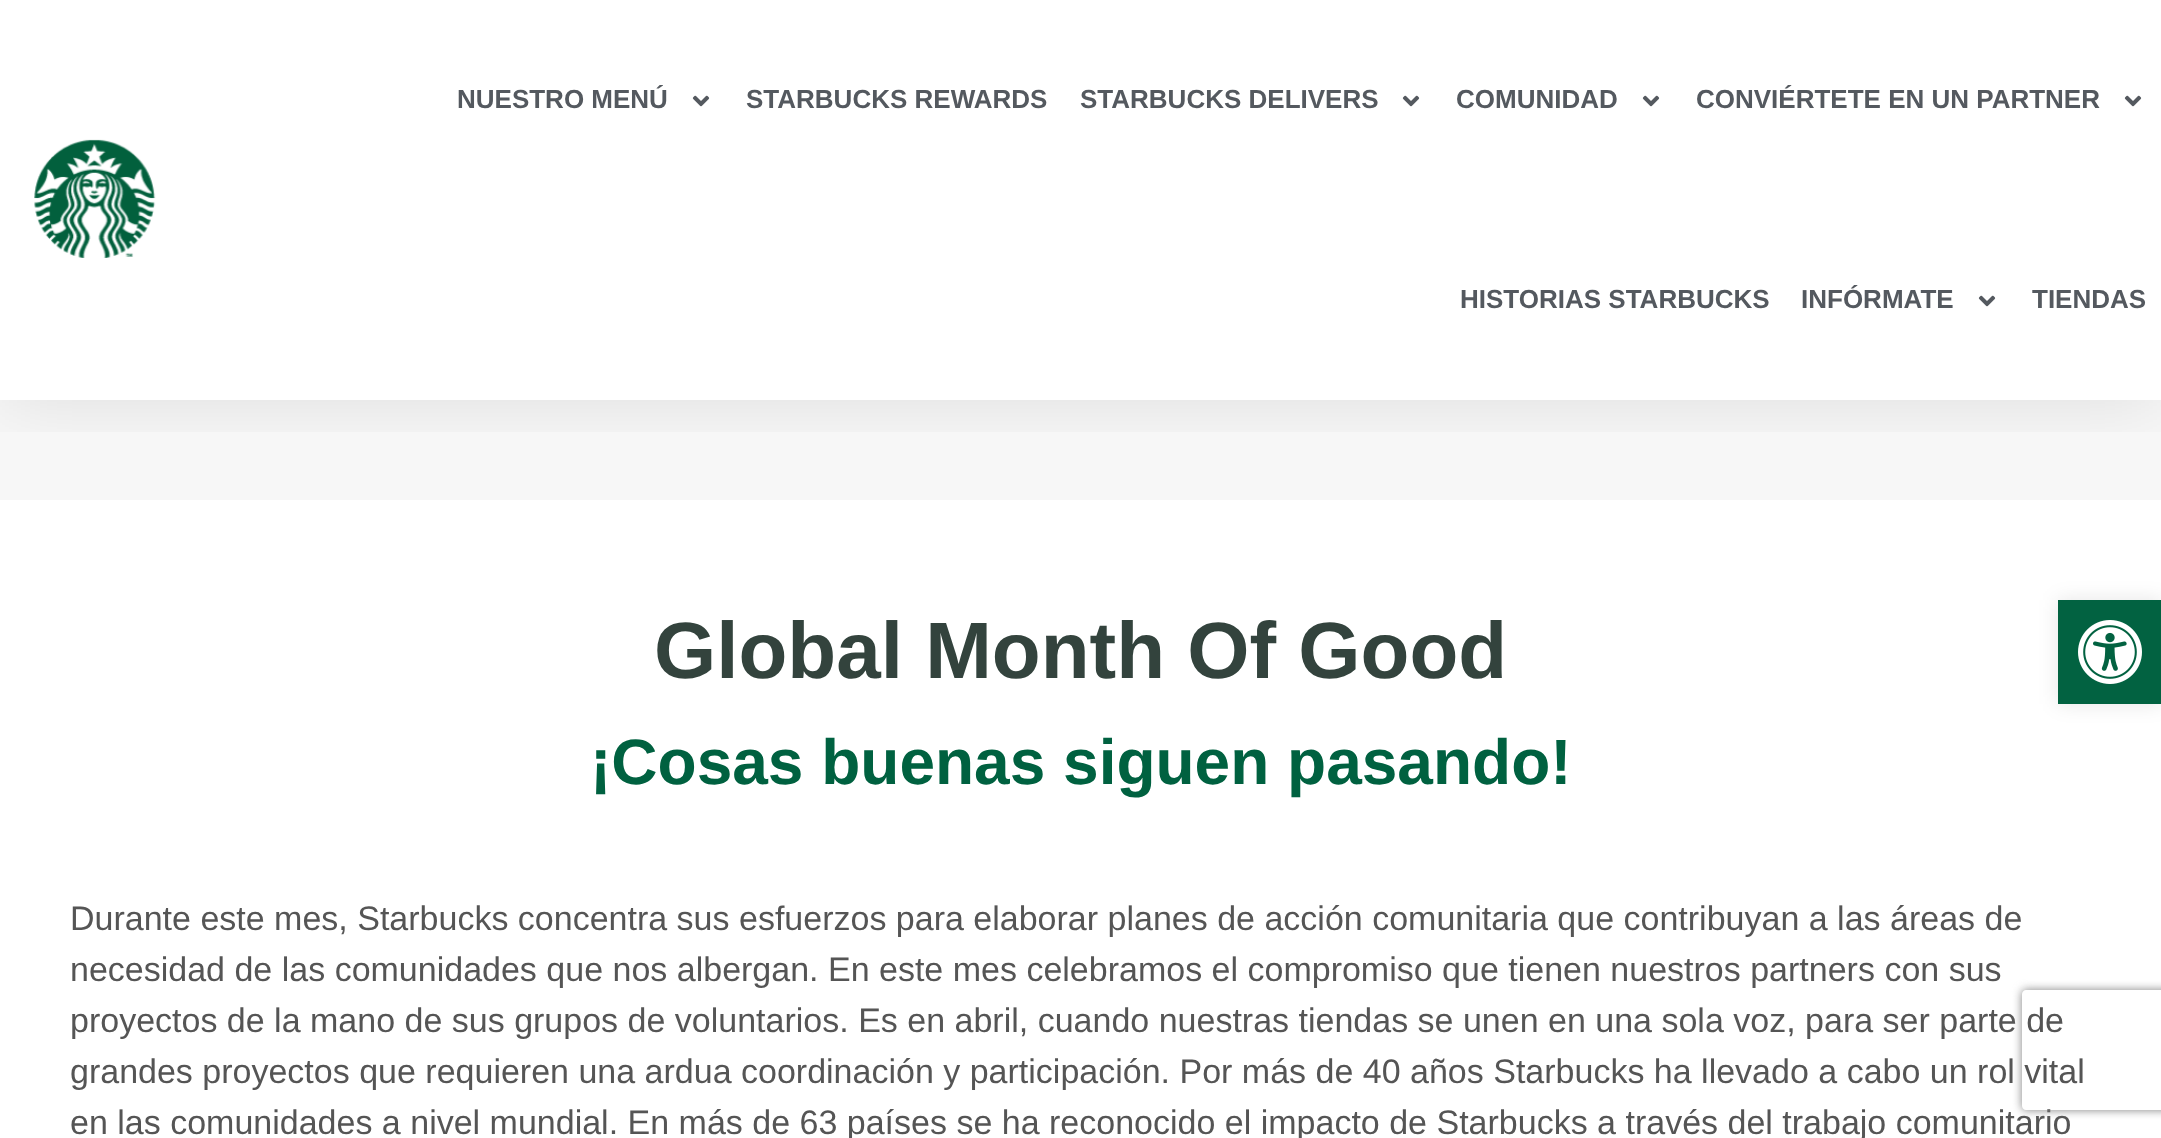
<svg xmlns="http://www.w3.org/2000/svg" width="2161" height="1138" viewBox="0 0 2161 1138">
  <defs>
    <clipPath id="clip1"><rect x="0" y="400" width="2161" height="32"/></clipPath>
    <clipPath id="clip2"><path d="M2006 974H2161V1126H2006ZM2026 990H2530C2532 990 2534 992 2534 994V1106C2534 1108 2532 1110 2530 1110H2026C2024 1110 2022 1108 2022 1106V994C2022 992 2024 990 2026 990Z" clip-rule="evenodd"/></clipPath>
  </defs>
  <rect width="100%" height="100%" fill="rgb(255,255,255)"/>
  <rect x="0" y="400" width="2161" height="100" fill="rgb(247,247,247)"/>
  <g clip-path="url(#clip1)">
    <rect x="0" y="0" width="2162" height="400" fill="rgba(0,0,0,0.1)" filter="blur(38px)"/>
  </g>
  <image x="34" y="139" width="122" height="119" href="pic1.png"/>
  <text x="457" y="108" font-family="Liberation Sans" font-size="26" font-weight="bold" fill="rgb(84,89,95)">NUESTRO MENÚ</text>
  <image x="692" y="95" width="18" height="12" href="pic2.png"/>
  <g font-family="Liberation Sans" font-size="26" font-weight="bold" fill="rgb(84,89,95)">
    <text x="746" y="108">STARBUCKS REWARDS</text>
    <text x="1080" y="108">STARBUCKS DELIVERS</text>
  </g>
  <image x="1402" y="95" width="18" height="12" href="pic2.png"/>
  <text x="1456" y="108" font-family="Liberation Sans" font-size="26" font-weight="bold" fill="rgb(84,89,95)">COMUNIDAD</text>
  <image x="1642" y="95" width="18" height="12" href="pic2.png"/>
  <text x="1696" y="108" font-family="Liberation Sans" font-size="26" font-weight="bold" fill="rgb(84,89,95)">CONVIÉRTETE EN UN PARTNER</text>
  <image x="2124" y="95" width="18" height="12" href="pic2.png"/>
  <g font-family="Liberation Sans" font-size="26" font-weight="bold" fill="rgb(84,89,95)">
    <text x="1460" y="308">HISTORIAS STARBUCKS</text>
    <text x="1801" y="308">INFÓRMATE</text>
  </g>
  <image x="1978" y="295" width="18" height="12" href="pic2.png"/>
  <text x="2032" y="308" font-family="Liberation Sans" font-size="26" font-weight="bold" fill="rgb(84,89,95)">TIENDAS</text>
  <text x="654" y="678" font-family="Liberation Sans" font-size="80" font-weight="bold" fill="rgb(51,67,61)">Global Month Of Good</text>
  <text x="590" y="784" font-family="Liberation Sans" font-size="64" font-weight="bold" fill="rgb(0,97,64)">¡Cosas buenas siguen pasando!</text>
  <g font-family="Liberation Sans" font-size="34" fill="rgb(85,85,85)">
    <text>
      <tspan x="70" y="930">Durante este mes, Starbucks concentra sus esfuerzos para elaborar planes de acción comunitaria que contribuyan a las áreas de</tspan>
      <tspan x="70" y="981">necesidad de las comunidades que nos albergan. En este mes celebramos el compromiso que tienen nuestros partners con sus</tspan>
      <tspan x="70" y="1032">proyectos de la mano de sus grupos de voluntarios. Es en abril, cuando nuestras tiendas se unen en una sola voz, para ser parte de</tspan>
      <tspan x="70" y="1083">grandes proyectos que requieren una ardua coordinación y participación. Por más de 40 años Starbucks ha llevado a cabo un rol vital</tspan>
      <tspan x="70" y="1134">en las comunidades a nivel mundial. En más de 63 países se ha reconocido el impacto de Starbucks a través del trabajo comunitario</tspan>
    </text>
  </g>
  <rect x="2058" y="600" width="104" height="104" fill="rgba(0,0,0,0.1)" filter="blur(10px)"/>
  <rect x="2058" y="600" width="103" height="104" fill="rgb(2,98,65)"/>
  <image x="2078" y="620" width="64" height="64" href="pic3.png"/>
  <g clip-path="url(#clip2)">
    <rect x="2022" y="990" width="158" height="120" rx="4" fill="rgb(128,128,128)" filter="blur(5px)"/>
  </g>
</svg>
